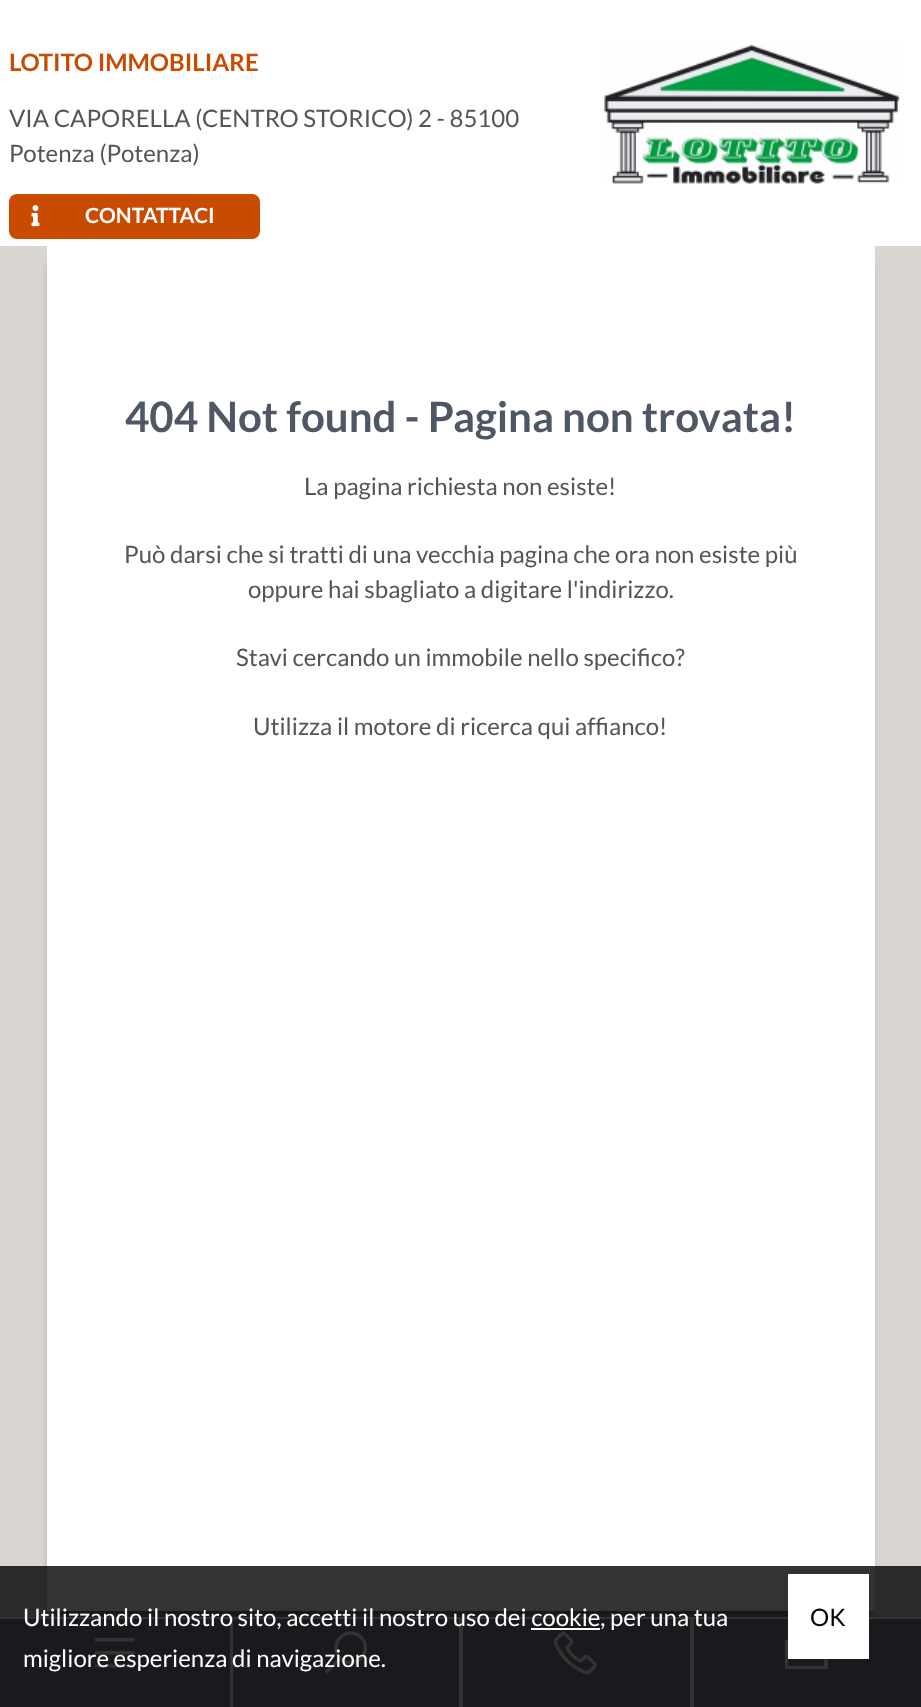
<svg xmlns="http://www.w3.org/2000/svg" width="921" height="1707" viewBox="0 0 921 1707">
  <rect width="100%" height="100%" fill="rgb(217,214,210)"/>
  <rect x="0" y="0" width="921" height="246" fill="rgb(255,255,255)"/>
  <text x="9" y="71" font-family="Lato" font-size="24" font-weight="bold" fill="rgb(201,75,0)">LOTITO IMMOBILIARE</text>
  <g font-family="Lato" font-size="24" fill="rgb(85,85,85)">
    <text>
      <tspan x="9" y="127">VIA CAPORELLA (CENTRO STORICO) 2 - 85100</tspan>
      <tspan x="9" y="162">Potenza (Potenza)</tspan>
    </text>
  </g>
  <rect x="9" y="194" width="251" height="45" rx="8" fill="rgb(201,75,0)"/>
  <image x="31" y="205" width="9" height="22" href="pic1.png"/>
  <text x="85" y="223" font-family="Lato" font-size="21" font-weight="bold" fill="rgb(255,255,255)">CONTATTACI</text>
  <image x="604" y="45" width="296" height="139" href="pic2.png"/>
  <rect x="51" y="263" width="819" height="1356" fill="rgb(115,113,110)" filter="blur(4.5px)"/>
  <rect x="47" y="246" width="828" height="1365" fill="rgb(255,255,255)"/>
  <text x="125" y="432" font-family="Lato" font-size="42" font-weight="bold" fill="rgb(80,87,100)">404 Not found - Pagina non trovata!</text>
  <g font-family="Lato" font-size="24" fill="rgb(85,85,85)">
    <text x="304" y="495">La pagina richiesta non esiste!</text>
    <text x="124" y="563">Può darsi che si tratti di una vecchia pagina che ora non esiste più</text>
    <text x="248" y="598">oppure hai sbagliato a digitare l'indirizzo.</text>
    <text x="236" y="666">Stavi cercando un immobile nello specifico?</text>
    <text x="253" y="735">Utilizza il motore di ricerca qui affianco!</text>
  </g>
  <rect x="0" y="1619" width="230" height="88" fill="rgb(126,131,145)"/>
  <rect x="0" y="1617" width="921" height="2" fill="rgb(255,255,255)"/>
  <rect x="230" y="1617" width="3" height="90" fill="rgb(255,255,255)"/>
  <path d="M95 1638H134.5V1641.5H95ZM95 1651H134.5V1654.5H95ZM95 1664.5H134.5V1667.5H95Z" fill="rgb(255,255,255)"/>
  <rect x="233" y="1619" width="226" height="88" fill="rgb(126,131,145)"/>
  <rect x="459" y="1617" width="4" height="90" fill="rgb(255,255,255)"/>
  <image x="325" y="1631" width="43" height="43" href="pic3.png"/>
  <rect x="463" y="1619" width="227" height="88" fill="rgb(126,131,145)"/>
  <rect x="690" y="1617" width="4" height="90" fill="rgb(255,255,255)"/>
  <image x="553" y="1631" width="44" height="44" href="pic4.png"/>
  <rect x="694" y="1619" width="227" height="88" fill="rgb(126,131,145)"/>
  <path d="M785 1640H828V1669H785ZM792 1643L806 1652L821 1643ZM788 1644V1666H824V1644L806 1656Z" fill="rgb(255,255,255)"/>
  <rect x="0" y="1566" width="921" height="141" fill="rgba(0,0,0,0.8)"/>
  <text x="23" y="1626" font-family="Lato" font-size="24" fill="rgb(255,255,255)">Utilizzando il nostro sito, accetti il nostro uso dei cookie, per una tua</text>
  <rect x="788" y="1574" width="81" height="85" fill="rgb(255,255,255)"/>
  <text x="810" y="1626" font-family="Lato" font-size="24" fill="rgb(0,0,0)">OK</text>
  <rect x="531" y="1628" width="69" height="2" fill="rgb(255,255,255)"/>
  <text x="23" y="1667" font-family="Lato" font-size="24" fill="rgb(255,255,255)">migliore esperienza di navigazione.</text>
</svg>
